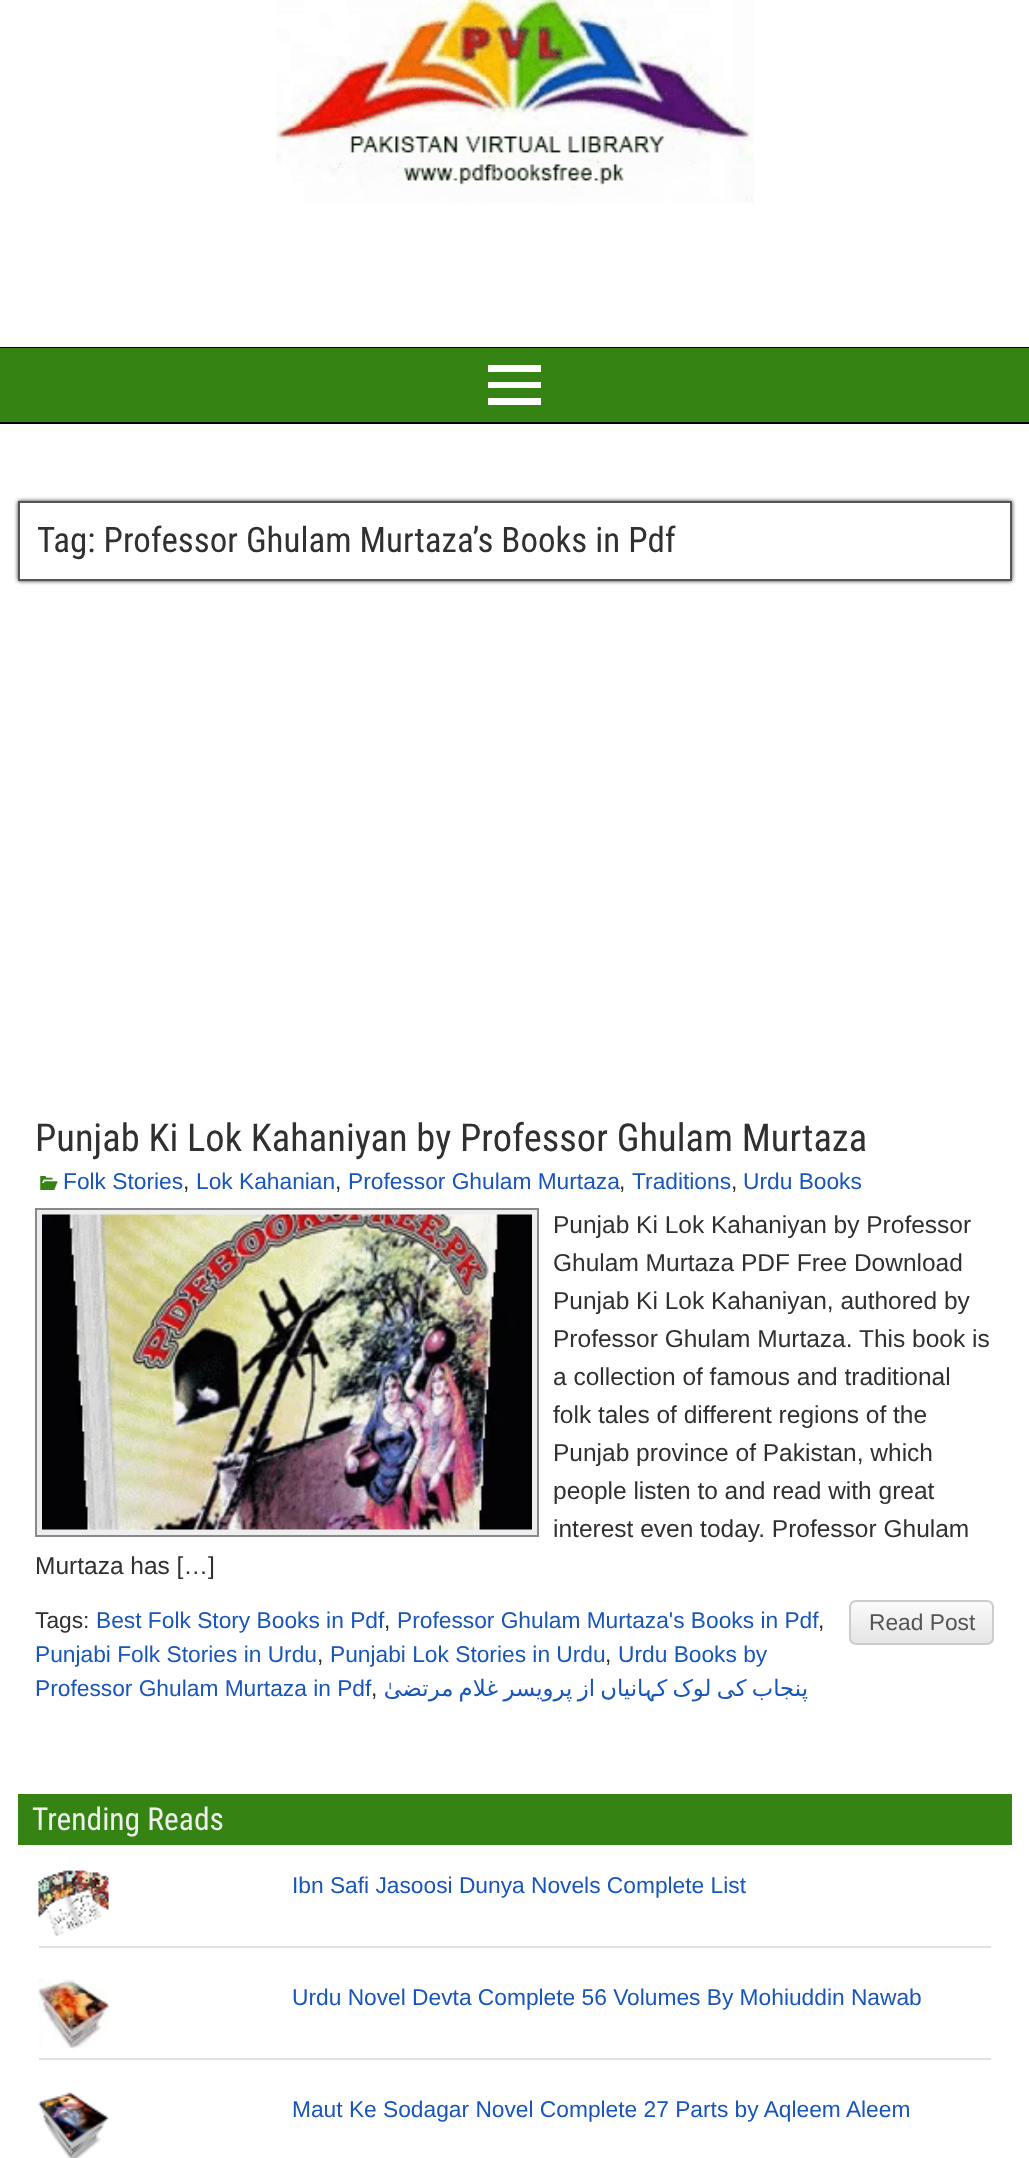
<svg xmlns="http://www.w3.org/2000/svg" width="1029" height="2158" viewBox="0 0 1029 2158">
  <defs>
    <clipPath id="clip1"><rect x="849" y="1600" width="145" height="45" rx="7"/></clipPath>
    <linearGradient id="g1" gradientUnits="userSpaceOnUse" x1="921" y1="1601" x2="921" y2="1643"><stop offset="0" stop-color="rgb(251,251,251)"/><stop offset="1" stop-color="rgb(229,229,229)"/></linearGradient>
  </defs>
  <rect width="100%" height="100%" fill="rgb(255,255,255)"/>
  <rect x="0" y="347" width="1029" height="1" fill="rgb(0,0,0)"/>
  <image x="276" y="0" width="479" height="203" href="pic1.png"/>
  <rect x="0" y="348" width="1029" height="74" fill="rgb(53,132,19)"/>
  <rect x="0" y="422" width="1029" height="2" fill="rgb(0,0,0)"/>
  <path d="M488 405V398H541V405ZM488 365H541V372H488ZM488 388V382H541V388Z" fill="rgb(255,255,255)"/>
  <rect x="18" y="501" width="994" height="80" fill="rgb(51,51,51)" filter="blur(2px)"/>
  <rect x="19" y="502" width="992" height="78" fill="rgb(255,255,255)" stroke="rgb(85,85,85)" stroke-width="2"/>
  <text x="37" y="552" font-family="Roboto Condensed" font-size="35" fill="rgb(48,48,48)">Tag: Professor Ghulam Murtaza’s Books in Pdf</text>
  <text x="35" y="1151" font-family="Roboto Condensed" font-size="38.5" fill="rgb(48,48,48)">Punjab Ki Lok Kahaniyan by Professor Ghulam Murtaza</text>
  <image x="40" y="1176" width="18" height="14" href="pic2.png"/>
  <text x="63" y="1189" font-family="Liberation Sans" font-size="22.75" fill="rgb(24,86,186)">Folk Stories</text>
  <text x="183" y="1189" font-family="Liberation Sans" font-size="22.75" fill="rgb(48,48,48)">,</text>
  <text x="196" y="1189" font-family="Liberation Sans" font-size="22.75" fill="rgb(24,86,186)">Lok Kahanian</text>
  <text x="335" y="1189" font-family="Liberation Sans" font-size="22.75" fill="rgb(48,48,48)">,</text>
  <text x="348" y="1189" font-family="Liberation Sans" font-size="22.75" fill="rgb(24,86,186)">Professor Ghulam Murtaza</text>
  <text x="619" y="1189" font-family="Liberation Sans" font-size="22.75" fill="rgb(48,48,48)">,</text>
  <text x="632" y="1189" font-family="Liberation Sans" font-size="22.75" fill="rgb(24,86,186)">Traditions</text>
  <text x="731" y="1189" font-family="Liberation Sans" font-size="22.75" fill="rgb(48,48,48)">,</text>
  <text x="743" y="1189" font-family="Liberation Sans" font-size="22.75" fill="rgb(24,86,186)">Urdu Books</text>
  <rect x="36" y="1209" width="502" height="327" fill="rgb(238,238,238)" stroke="rgb(136,136,136)" stroke-width="2"/>
  <image x="42" y="1214" width="490" height="316" href="pic3.png"/>
  <g font-family="Arimo" font-size="24.5" fill="rgb(48,48,48)">
    <text>
      <tspan x="553" y="1233">Punjab Ki Lok Kahaniyan by Professor</tspan>
      <tspan x="553" y="1271">Ghulam Murtaza PDF Free Download</tspan>
      <tspan x="553" y="1309">Punjab Ki Lok Kahaniyan, authored by</tspan>
      <tspan x="553" y="1347">Professor Ghulam Murtaza. This book is</tspan>
      <tspan x="553" y="1385">a collection of famous and traditional</tspan>
      <tspan x="553" y="1423">folk tales of different regions of the</tspan>
      <tspan x="553" y="1461">Punjab province of Pakistan, which</tspan>
      <tspan x="553" y="1499">people listen to and read with great</tspan>
      <tspan x="553" y="1537">interest even today. Professor Ghulam</tspan>
    </text>
    <text x="35" y="1574">Murtaza has […]</text>
  </g>
  <text x="35" y="1628" font-family="Liberation Sans" font-size="22.75" fill="rgb(48,48,48)">Tags:</text>
  <text x="96" y="1628" font-family="Liberation Sans" font-size="22.75" fill="rgb(24,86,186)">Best Folk Story Books in Pdf</text>
  <text x="384" y="1628" font-family="Liberation Sans" font-size="22.75" fill="rgb(48,48,48)">,</text>
  <text x="397" y="1628" font-family="Liberation Sans" font-size="22.75" fill="rgb(24,86,186)">Professor Ghulam Murtaza's Books in Pdf</text>
  <text x="818" y="1628" font-family="Liberation Sans" font-size="22.75" fill="rgb(48,48,48)">,</text>
  <text x="35" y="1662" font-family="Liberation Sans" font-size="22.75" fill="rgb(24,86,186)">Punjabi Folk Stories in Urdu</text>
  <text x="317" y="1662" font-family="Liberation Sans" font-size="22.75" fill="rgb(48,48,48)">,</text>
  <text x="330" y="1662" font-family="Liberation Sans" font-size="22.75" fill="rgb(24,86,186)">Punjabi Lok Stories in Urdu</text>
  <text x="605" y="1662" font-family="Liberation Sans" font-size="22.75" fill="rgb(48,48,48)">,</text>
  <g font-family="Liberation Sans" font-size="22.75" fill="rgb(24,86,186)">
    <text x="618" y="1662">Urdu Books by</text>
    <text x="35" y="1696">Professor Ghulam Murtaza in Pdf</text>
  </g>
  <text x="644" y="1696" word-spacing="-2" font-family="DejaVu Sans" font-size="22.75" direction="rtl" fill="rgb(24,86,186)">‍انیاں از پرویسر غلام مرتضیٰ</text>
  <text x="657" y="1696" font-family="Cascadia Code" font-size="22.75" direction="rtl" fill="rgb(24,86,186)">‍ہ‍</text>
  <text x="808" y="1696" word-spacing="-2" font-family="DejaVu Sans" font-size="22.75" direction="rtl" fill="rgb(24,86,186)">پنجاب کی لوک ک‍</text>
  <text x="371" y="1696" font-family="Liberation Sans" font-size="22.75" fill="rgb(48,48,48)">,</text>
  <g clip-path="url(#clip1)">
    <rect x="849" y="1601" width="145" height="42" fill="url(#g1)"/>
  </g>
  <rect x="850" y="1601" width="143" height="43" rx="6" fill="none" stroke="rgb(204,204,204)" stroke-width="2"/>
  <text x="869" y="1630" font-family="Liberation Sans" font-size="22.75" fill="rgb(85,85,85)">Read Post</text>
  <rect x="18" y="1794" width="994" height="51" fill="rgb(53,132,19)"/>
  <text x="32" y="1830" font-family="Roboto Condensed" font-size="31.5" fill="rgb(238,238,238)">Trending Reads</text>
  <rect x="39" y="1946" width="952" height="2" fill="rgb(224,224,224)"/>
  <image x="38" y="1869" width="71" height="67" href="pic4.png"/>
  <text x="292" y="1893" font-family="Liberation Sans" font-size="22.75" fill="rgb(24,86,186)">Ibn Safi Jasoosi Dunya Novels Complete List</text>
  <rect x="39" y="2058" width="952" height="2" fill="rgb(224,224,224)"/>
  <image x="38" y="1979" width="71" height="70" href="pic5.png"/>
  <text x="292" y="2005" font-family="Liberation Sans" font-size="22.75" fill="rgb(24,86,186)">Urdu Novel Devta Complete 56 Volumes By Mohiuddin Nawab</text>
  <image x="38" y="2092" width="71" height="66" href="pic6.png"/>
  <text x="292" y="2117" font-family="Liberation Sans" font-size="22.75" fill="rgb(24,86,186)">Maut Ke Sodagar Novel Complete 27 Parts by Aqleem Aleem</text>
</svg>
